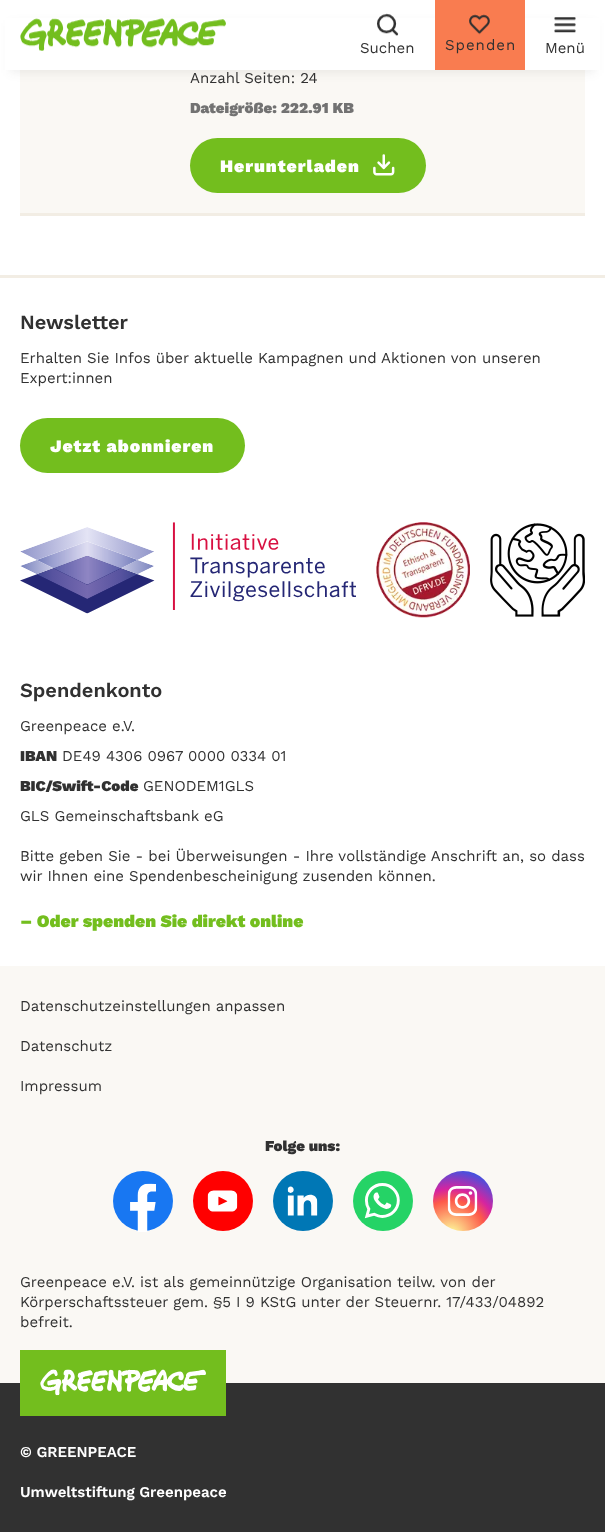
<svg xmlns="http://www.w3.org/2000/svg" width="605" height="1532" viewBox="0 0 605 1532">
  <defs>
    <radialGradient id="g1" gradientUnits="userSpaceOnUse" cx="451" cy="1235" r="77"><stop offset="0" stop-color="rgb(253,244,151)"/><stop offset="0.05" stop-color="rgb(253,244,151)"/><stop offset="0.45" stop-color="rgb(253,89,73)"/><stop offset="0.6" stop-color="rgb(214,36,159)"/><stop offset="0.9" stop-color="rgb(40,90,235)"/></radialGradient>
  </defs>
  <rect width="100%" height="100%" fill="rgb(255,255,255)"/>
  <rect x="20" y="70" width="565" height="143" fill="rgb(250,248,244)"/>
  <rect x="10" y="23" width="585" height="50" fill="rgba(49,49,49,0.08)" filter="blur(5px)"/>
  <rect x="5" y="18" width="595" height="52" fill="rgb(255,255,255)"/>
  <image x="20" y="18" width="206" height="33" href="pic1.png"/>
  <image x="377" y="13" width="22" height="23" href="pic2.png"/>
  <text x="360" y="53" font-family="Work Sans" font-size="15" fill="rgb(49,49,49)">Suchen</text>
  <rect x="435" y="0" width="90" height="70" fill="rgb(249,124,80)"/>
  <image x="469" y="14" width="21" height="21" href="pic3.png"/>
  <text x="445" y="50" font-family="Work Sans" font-size="15" letter-spacing="1" fill="rgb(49,49,49)">Spenden</text>
  <image x="554" y="17" width="22" height="16" href="pic4.png"/>
  <text x="545" y="53" font-family="Work Sans" font-size="15" fill="rgb(49,49,49)">Menü</text>
  <rect x="20" y="213" width="565" height="3" fill="rgb(242,237,228)"/>
  <text x="190" y="83" font-family="Work Sans" font-size="15" fill="rgb(49,49,49)">Anzahl Seiten: 24</text>
  <text x="190" y="113" font-family="Work Sans" font-size="15" font-weight="900" fill="rgb(114,114,114)">Dateigröße: 222.91 KB</text>
  <rect x="190" y="138" width="236" height="55" rx="27.5" fill="rgb(115,190,30)"/>
  <text x="220" y="172" font-family="Work Sans" font-size="17.5" font-weight="900" letter-spacing="1" fill="rgb(255,255,255)">Herunterladen</text>
  <image x="373" y="154" width="22" height="22" href="pic5.png"/>
  <rect x="0" y="275" width="605" height="3" fill="rgb(242,237,228)"/>
  <text x="20" y="329" font-family="Work Sans" font-size="20" font-weight="600" fill="rgb(49,49,49)">Newsletter</text>
  <g font-family="Work Sans" font-size="15" fill="rgb(49,49,49)">
    <text>
      <tspan x="20" y="363">Erhalten Sie Infos über aktuelle Kampagnen und Aktionen von unseren</tspan>
      <tspan x="20" y="383">Expert:innen</tspan>
    </text>
  </g>
  <rect x="20" y="418" width="225" height="55" rx="27.5" fill="rgb(115,190,30)"/>
  <text x="50" y="452" font-family="Work Sans" font-size="17.5" font-weight="900" letter-spacing="1" fill="rgb(255,255,255)">Jetzt abonnieren</text>
  <image x="20" y="522" width="336" height="92" href="pic6.png"/>
  <image x="376" y="522" width="94" height="96" href="pic7.png"/>
  <image x="490" y="523" width="95" height="94" href="pic8.png"/>
  <text x="20" y="697" font-family="Work Sans" font-size="20" font-weight="600" fill="rgb(49,49,49)">Spendenkonto</text>
  <text x="20" y="731" font-family="Work Sans" font-size="15" fill="rgb(49,49,49)">Greenpeace e.V.</text>
  <text x="20" y="761" font-family="Work Sans" font-size="15" font-weight="900" fill="rgb(49,49,49)">IBAN</text>
  <text x="62" y="761" font-family="Work Sans" font-size="15" fill="rgb(49,49,49)">DE49 4306‍ 0967‍ 0000‍ 0334 01</text>
  <text x="20" y="791" font-family="Work Sans" font-size="15" font-weight="900" fill="rgb(49,49,49)">BIC/Swift-Code</text>
  <g font-family="Work Sans" font-size="15" fill="rgb(49,49,49)">
    <text x="143" y="791">GENODEM1GLS</text>
    <text x="20" y="821">GLS Gemeinschaftsbank eG</text>
    <text>
      <tspan x="20" y="861">Bitte geben Sie - bei Überweisungen - Ihre vollständige Anschrift an, so dass</tspan>
      <tspan x="20" y="881">wir Ihnen eine Spendenbescheinigung zusenden können.</tspan>
    </text>
  </g>
  <text x="20" y="927" font-family="Work Sans" font-size="17.5" font-weight="900" fill="rgb(115,190,30)">– Oder spenden Sie direkt online</text>
  <rect x="0" y="966" width="605" height="417" fill="rgb(250,248,244)"/>
  <g font-family="Work Sans" font-size="15" fill="rgb(49,49,49)">
    <text x="20" y="1011">Datenschutzeinstellungen anpassen</text>
    <text x="20" y="1051">Datenschutz</text>
    <text x="20" y="1091">Impressum</text>
  </g>
  <text x="265" y="1151" font-family="Work Sans" font-size="15" font-weight="900" fill="rgb(49,49,49)">Folge uns:</text>
  <circle cx="143" cy="1201" r="30" fill="rgb(24,119,242)"/>
  <image x="130" y="1183" width="26" height="49" href="pic9.png"/>
  <circle cx="223" cy="1201" r="30" fill="rgb(255,0,0)"/>
  <image x="207" y="1190" width="31" height="22" href="pic10.png"/>
  <circle cx="303" cy="1201" r="30" fill="rgb(0,119,181)"/>
  <image x="287" y="1186" width="31" height="30" href="pic11.png"/>
  <circle cx="383" cy="1201" r="30" fill="rgb(37,211,102)"/>
  <image x="364" y="1183" width="36" height="36" href="pic12.png"/>
  <circle cx="463" cy="1201" r="30" fill="url(#g1)"/>
  <image x="447" y="1186" width="31" height="30" href="pic13.png"/>
  <g font-family="Work Sans" font-size="15" fill="rgb(49,49,49)">
    <text>
      <tspan x="20" y="1287">Greenpeace e.V. ist als gemeinnützige Organisation teilw. von der</tspan>
      <tspan x="20" y="1307">Körperschaftssteuer gem. §5 I 9 KStG unter der Steuernr. 17/433/04892</tspan>
      <tspan x="20" y="1327">befreit.</tspan>
    </text>
  </g>
  <rect x="0" y="1383" width="605" height="149" fill="rgb(49,49,49)"/>
  <rect x="20" y="1350" width="206" height="66" fill="rgb(115,190,30)"/>
  <image x="40" y="1369" width="166" height="27" href="pic14.png"/>
  <g font-family="Work Sans" font-size="15" font-weight="600" fill="rgb(255,255,255)">
    <text x="20" y="1457">© GREENPEACE</text>
    <text x="20" y="1497">Umweltstiftung Greenpeace</text>
  </g>
</svg>
